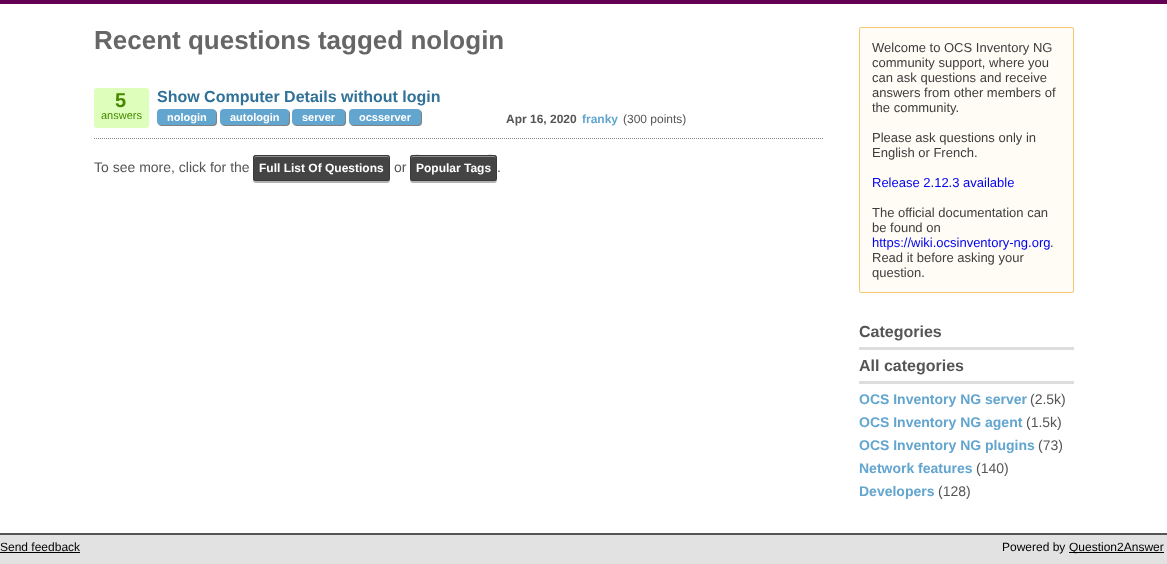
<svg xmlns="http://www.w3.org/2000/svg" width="1167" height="564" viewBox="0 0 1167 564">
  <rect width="100%" height="100%" fill="rgb(255,255,255)"/>
  <rect x="0" y="0" width="1167" height="4" fill="rgb(99,0,84)"/>
  <text x="94" y="49" font-family="Liberation Sans" font-size="26" font-weight="bold" fill="rgb(102,102,102)">Recent questions tagged nologin</text>
  <path d="M94 138.5H824" fill="none" stroke="rgb(136,136,136)" stroke-dasharray="1 1"/>
  <rect x="94" y="88" width="55" height="40" rx="3" fill="rgb(221,255,187)"/>
  <text x="115" y="107" font-family="Liberation Sans" font-size="20" font-weight="bold" fill="rgb(72,135,0)">5</text>
  <text x="101" y="119" font-family="Liberation Sans" font-size="11" fill="rgb(72,135,0)">answers</text>
  <text x="157" y="102" font-family="Liberation Sans" font-size="16" font-weight="bold" fill="rgb(48,113,152)">Show Computer Details without login</text>
  <rect x="158" y="110" width="59" height="16" rx="4" fill="rgb(129,129,129)" filter="blur(0.5px)"/>
  <rect x="157" y="109" width="59" height="16" rx="4" fill="rgb(98,165,206)"/>
  <text x="167" y="121" font-family="Liberation Sans" font-size="11" font-weight="bold" fill="rgb(255,255,255)">nologin</text>
  <rect x="221" y="110" width="69" height="16" rx="4" fill="rgb(129,129,129)" filter="blur(0.5px)"/>
  <rect x="220" y="109" width="69" height="16" rx="4" fill="rgb(98,165,206)"/>
  <text x="230" y="121" font-family="Liberation Sans" font-size="11" font-weight="bold" fill="rgb(255,255,255)">autologin</text>
  <rect x="293" y="110" width="53" height="16" rx="4" fill="rgb(129,129,129)" filter="blur(0.5px)"/>
  <rect x="292" y="109" width="53" height="16" rx="4" fill="rgb(98,165,206)"/>
  <text x="302" y="121" font-family="Liberation Sans" font-size="11" font-weight="bold" fill="rgb(255,255,255)">server</text>
  <rect x="350" y="110" width="72" height="16" rx="4" fill="rgb(129,129,129)" filter="blur(0.5px)"/>
  <rect x="349" y="109" width="72" height="16" rx="4" fill="rgb(98,165,206)"/>
  <text x="359" y="121" font-family="Liberation Sans" font-size="11" font-weight="bold" fill="rgb(255,255,255)">ocsserver</text>
  <text x="506" y="123" font-family="Liberation Sans" font-size="12" font-weight="bold" fill="rgb(85,85,85)">Apr 16, 2020</text>
  <text x="582" y="123" font-family="Liberation Sans" font-size="12" font-weight="bold" fill="rgb(98,165,206)">franky</text>
  <text x="623" y="123" font-family="Liberation Sans" font-size="12" fill="rgb(85,85,85)">(300 points)</text>
  <text x="94" y="172" font-family="Liberation Sans" font-size="14" fill="rgb(85,85,85)">To see more, click for the</text>
  <rect x="253" y="157" width="137" height="26" rx="3" fill="rgba(0,0,0,0.3)" filter="blur(0.5px)"/>
  <rect x="253" y="155" width="137" height="26" rx="3" fill="rgb(68,68,68)"/>
  <path d="M256 157H387C388 157 389 158 389 159C389 158 389 156 387 156H256C254 156 254 158 254 159C254 158 255 157 256 157Z" fill="rgb(143,143,143)"/>
  <rect x="253.5" y="155.5" width="136" height="25" rx="2.5" fill="none" stroke="rgb(58,58,58)"/>
  <text x="259" y="172" font-family="Liberation Sans" font-size="12" font-weight="bold" fill="rgb(255,255,255)">Full List Of Questions</text>
  <text x="394" y="172" font-family="Liberation Sans" font-size="14" fill="rgb(85,85,85)">or</text>
  <rect x="410" y="157" width="87" height="26" rx="3" fill="rgba(0,0,0,0.3)" filter="blur(0.5px)"/>
  <rect x="410" y="155" width="87" height="26" rx="3" fill="rgb(68,68,68)"/>
  <path d="M413 157H494C495 157 496 158 496 159C496 152 483 156 480 156H426C424 156 411 152 411 159C411 158 412 157 413 157Z" fill="rgb(143,143,143)"/>
  <rect x="410.5" y="155.5" width="86" height="25" rx="2.5" fill="none" stroke="rgb(58,58,58)"/>
  <text x="416" y="172" font-family="Liberation Sans" font-size="12" font-weight="bold" fill="rgb(255,255,255)">Popular Tags</text>
  <text x="497" y="172" font-family="Liberation Sans" font-size="14" fill="rgb(85,85,85)">.</text>
  <rect x="859.5" y="27.5" width="214" height="265" rx="1.5" fill="rgb(255,252,245)" stroke="rgb(243,199,114)"/>
  <g font-family="Liberation Sans" font-size="13" fill="rgb(61,61,61)">
    <text>
      <tspan x="872" y="52">Welcome to OCS Inventory NG</tspan>
      <tspan x="872" y="67">community support, where you</tspan>
      <tspan x="872" y="82">can ask questions and receive</tspan>
      <tspan x="872" y="97">answers from other members of</tspan>
      <tspan x="872" y="112">the community.</tspan>
    </text>
    <text>
      <tspan x="872" y="142">Please ask questions only in</tspan>
      <tspan x="872" y="157">English or French.</tspan>
    </text>
  </g>
  <text x="872" y="187" font-family="Liberation Sans" font-size="13" fill="rgb(0,0,238)">Release 2.12.3 available</text>
  <g font-family="Liberation Sans" font-size="13" fill="rgb(61,61,61)">
    <text>
      <tspan x="872" y="217">The official documentation can</tspan>
      <tspan x="872" y="232">be found on</tspan>
    </text>
  </g>
  <text x="872" y="247" font-family="Liberation Sans" font-size="13" fill="rgb(0,0,238)">https://wiki.ocsinventory-ng.org</text>
  <g font-family="Liberation Sans" font-size="13" fill="rgb(61,61,61)">
    <text x="1050" y="247">.</text>
    <text>
      <tspan x="872" y="262">Read it before asking your</tspan>
      <tspan x="872" y="277">question.</tspan>
    </text>
  </g>
  <rect x="859" y="347" width="215" height="3" fill="rgb(221,221,221)"/>
  <text x="859" y="337" font-family="Liberation Sans" font-size="16" font-weight="bold" fill="rgb(85,85,85)">Categories</text>
  <rect x="859" y="381" width="215" height="3" fill="rgb(221,221,221)"/>
  <text x="859" y="371" font-family="Liberation Sans" font-size="16" font-weight="bold" fill="rgb(85,85,85)">All categories</text>
  <text x="859" y="404" font-family="Liberation Sans" font-size="14" font-weight="bold" fill="rgb(98,165,206)">OCS Inventory NG server</text>
  <text x="1030" y="404" font-family="Liberation Sans" font-size="14" fill="rgb(85,85,85)">(2.5k)</text>
  <text x="859" y="427" font-family="Liberation Sans" font-size="14" font-weight="bold" fill="rgb(98,165,206)">OCS Inventory NG agent</text>
  <text x="1026" y="427" font-family="Liberation Sans" font-size="14" fill="rgb(85,85,85)">(1.5k)</text>
  <text x="859" y="450" font-family="Liberation Sans" font-size="14" font-weight="bold" fill="rgb(98,165,206)">OCS Inventory NG plugins</text>
  <text x="1038" y="450" font-family="Liberation Sans" font-size="14" fill="rgb(85,85,85)">(73)</text>
  <text x="859" y="473" font-family="Liberation Sans" font-size="14" font-weight="bold" fill="rgb(98,165,206)">Network features</text>
  <text x="976" y="473" font-family="Liberation Sans" font-size="14" fill="rgb(85,85,85)">(140)</text>
  <text x="859" y="496" font-family="Liberation Sans" font-size="14" font-weight="bold" fill="rgb(98,165,206)">Developers</text>
  <text x="938" y="496" font-family="Liberation Sans" font-size="14" fill="rgb(85,85,85)">(128)</text>
  <rect x="0" y="535" width="1167" height="29" fill="rgb(226,226,226)"/>
  <rect x="0" y="533" width="1167" height="2" fill="rgb(85,85,85)"/>
  <text x="0" y="551" font-family="Liberation Sans" font-size="12" fill="rgb(0,0,0)">Send feedback</text>
  <rect x="0" y="552" width="80" height="1" fill="rgb(0,0,0)"/>
  <text x="1002" y="551" font-family="Liberation Sans" font-size="12" fill="rgb(0,0,0)">Powered by</text>
  <rect x="1069" y="552" width="95" height="1" fill="rgb(0,0,0)"/>
  <text x="1069" y="551" font-family="Liberation Sans" font-size="12" fill="rgb(0,0,0)">Question2Answer</text>
</svg>
